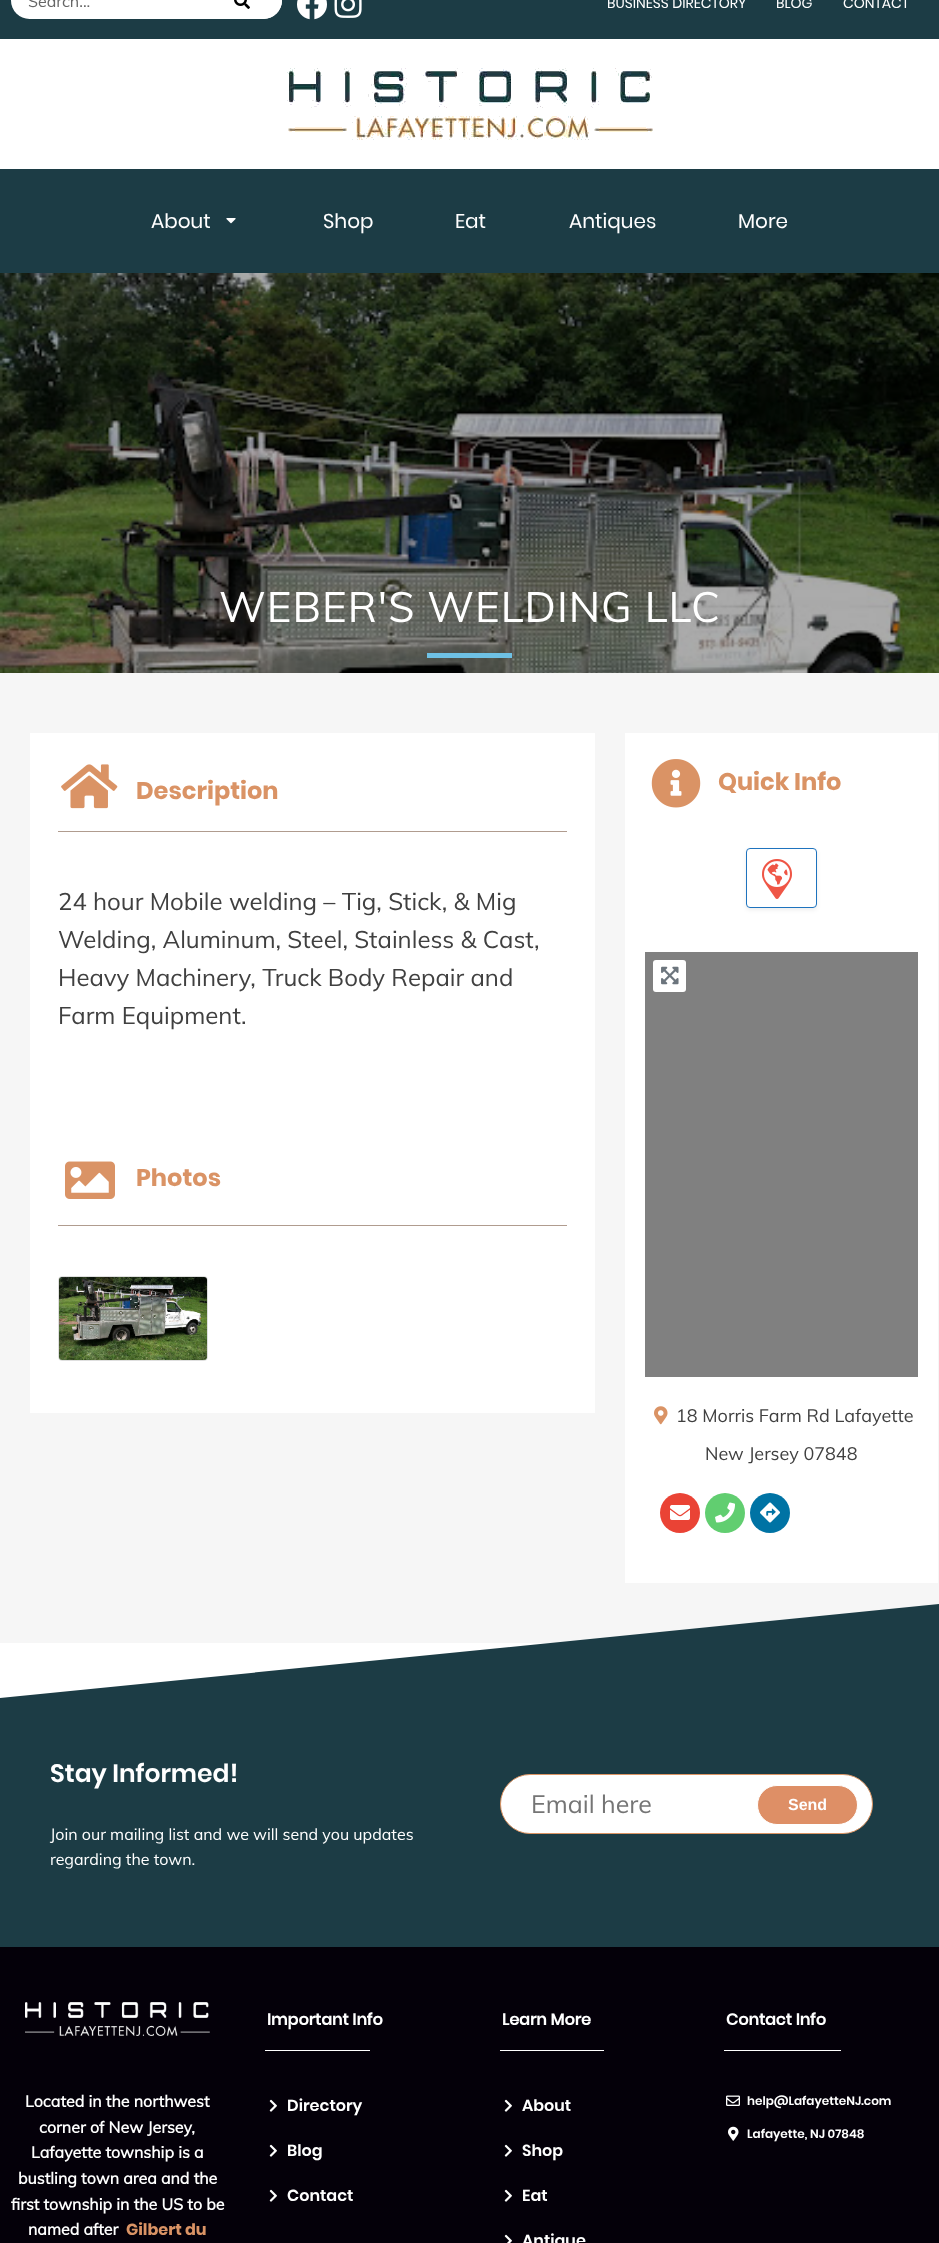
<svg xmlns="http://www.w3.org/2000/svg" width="939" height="2243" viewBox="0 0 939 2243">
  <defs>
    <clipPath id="clip1"><path d="M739 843H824V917H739ZM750 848H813C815 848 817 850 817 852V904C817 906 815 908 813 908H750C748 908 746 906 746 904V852C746 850 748 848 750 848Z" clip-rule="evenodd"/></clipPath>
  </defs>
  <rect width="100%" height="100%" fill="rgb(255,255,255)"/>
  <rect x="0" y="0" width="939" height="39" fill="rgb(28,60,69)"/>
  <rect x="11" y="-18" width="271" height="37" rx="18.5" fill="rgb(255,255,255)"/>
  <text x="28" y="7" font-family="Muli" font-size="16" fill="rgb(102,102,102)">Search...</text>
  <path d="M202-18H263.5C273.5-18 282-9.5 282 .5C282 10.5 273.5 19 263.5 19H202Z" fill="rgb(255,255,255)"/>
  <image x="234" y="0" width="16" height="9" href="pic1.png"/>
  <image x="297" y="0" width="30" height="20" href="pic2.png"/>
  <image x="334" y="0" width="28" height="18" href="pic3.png"/>
  <g font-family="Poppins" font-size="14" fill="rgb(255,255,255)">
    <text x="607" y="8">BUSINESS DIRECTORY</text>
    <text x="776" y="8">BLOG</text>
    <text x="843" y="8">CONTACT</text>
  </g>
  <image x="287" y="68" width="366" height="72" href="pic4.png"/>
  <rect x="0" y="169" width="939" height="104" fill="rgb(28,60,69)"/>
  <text x="151" y="228" font-family="Poppins" font-size="20" fill="rgb(255,255,255)">About</text>
  <image x="226" y="218" width="10" height="6" href="pic5.png"/>
  <g font-family="Poppins" font-size="20" fill="rgb(255,255,255)">
    <text x="323" y="228">Shop</text>
    <text x="455" y="228">Eat</text>
    <text x="569" y="228">Antiques</text>
    <text x="738" y="228">More</text>
  </g>
  <image x="0" y="273" width="939" height="400" href="pic6.png"/>
  <text x="219" y="622" font-family="Muli" font-size="42" letter-spacing="1" fill="rgb(255,255,255)">WEBER'S WELDING LLC</text>
  <rect x="427" y="653" width="85" height="5" fill="rgb(110,193,228)"/>
  <rect x="0" y="673" width="939" height="970" fill="rgb(246,246,246)"/>
  <rect x="30" y="733" width="565" height="680" fill="rgb(255,255,255)"/>
  <image x="61" y="764" width="57" height="45" href="pic7.png"/>
  <text x="136" y="799" font-family="Poppins" font-size="24" font-weight="bold" fill="rgb(218,147,101)">Description</text>
  <rect x="58" y="831" width="509" height="1" fill="rgb(176,156,143)"/>
  <g font-family="Muli" font-size="24" fill="rgb(64,64,64)">
    <text>
      <tspan x="58" y="910">24 hour Mobile welding – Tig, Stick, &amp; Mig</tspan>
      <tspan x="58" y="948">Welding, Aluminum, Steel, Stainless &amp; Cast,</tspan>
      <tspan x="58" y="986">Heavy Machinery, Truck Body Repair and</tspan>
      <tspan x="58" y="1024">Farm Equipment.</tspan>
    </text>
  </g>
  <image x="65" y="1161" width="50" height="38" href="pic8.png"/>
  <text x="136" y="1186" font-family="Poppins" font-size="24" font-weight="bold" fill="rgb(218,147,101)">Photos</text>
  <rect x="58" y="1225" width="509" height="1" fill="rgb(176,156,143)"/>
  <rect x="58.5" y="1276.5" width="149" height="84" rx="3.5" fill="none" stroke="rgb(223,223,223)"/>
  <image x="59" y="1277" width="148" height="83" href="pic9.png"/>
  <rect x="625" y="733" width="313" height="850" fill="rgb(255,255,255)"/>
  <image x="651" y="759" width="50" height="49" href="pic10.png"/>
  <text x="718" y="790" font-family="Poppins" font-size="24" font-weight="bold" fill="rgb(218,147,101)">Quick Info</text>
  <g clip-path="url(#clip1)">
    <rect x="746" y="850" width="71" height="60" rx="4" fill="rgba(0,0,0,0.07)" filter="blur(2px)"/>
  </g>
  <rect x="746.5" y="848.5" width="70" height="59" rx="3.5" fill="none" stroke="rgb(30,115,190)"/>
  <image x="762" y="859" width="30" height="40" href="pic11.png"/>
  <rect x="645" y="952" width="273" height="425" fill="rgb(128,128,128)"/>
  <rect x="653" y="960" width="33" height="32" rx="3" fill="rgb(255,255,255)"/>
  <image x="661" y="966" width="18" height="19" href="pic12.png"/>
  <image x="654" y="1406" width="14" height="19" href="pic13.png"/>
  <g font-family="Muli" font-size="18" fill="rgb(64,64,64)">
    <text x="676" y="1422">18 Morris Farm Rd Lafayette</text>
    <text x="705" y="1460">New Jersey 07848</text>
  </g>
  <circle cx="680" cy="1513" r="20" fill="rgb(234,67,53)"/>
  <image x="670" y="1505" width="20" height="15" href="pic14.png"/>
  <circle cx="725" cy="1513" r="20" fill="rgb(97,206,112)"/>
  <image x="715" y="1502" width="20" height="21" href="pic15.png"/>
  <circle cx="770" cy="1513" r="20" fill="rgb(0,115,164)"/>
  <image x="760" y="1502" width="20" height="21" href="pic16.png"/>
  <path d="M0 1698V1704H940V1604Z" fill="rgb(28,60,69)"/>
  <rect x="0" y="1704" width="939" height="243" fill="rgb(28,60,69)"/>
  <text x="50" y="1782" font-family="Poppins" font-size="25" font-weight="600" fill="rgb(255,255,255)">Stay Informed!</text>
  <g font-family="Muli" font-size="16" fill="rgb(255,255,255)">
    <text>
      <tspan x="50" y="1840">Join our mailing list and we will send you updates</tspan>
      <tspan x="50" y="1865">regarding the town.</tspan>
    </text>
  </g>
  <rect x="500.5" y="1774.5" width="372" height="59" rx="29.5" fill="rgb(255,255,255)" stroke="rgb(219,148,99)"/>
  <text x="531" y="1813" font-family="Muli" font-size="25" fill="rgb(117,117,117)">Email here</text>
  <rect x="757.5" y="1785.5" width="100" height="39" rx="19.5" fill="rgb(222,143,102)" stroke="rgb(255,255,255)"/>
  <text x="788" y="1810" font-family="Liberation Sans" font-size="16" font-weight="bold" fill="rgb(255,255,255)">Send</text>
  <rect x="0" y="1947" width="939" height="296" fill="rgb(4,0,9)"/>
  <image x="25" y="2002" width="185" height="34" href="pic17.png"/>
  <g font-family="Muli" font-size="16" font-weight="bold" fill="rgb(255,255,255)">
    <text x="25" y="2107">Located in the northwest</text>
    <text x="39" y="2133">corner of New Jersey,</text>
    <text x="31" y="2158">Lafayette township is a</text>
    <text x="18" y="2184">bustling town area and the</text>
    <text x="11" y="2210">first township in the US to be</text>
    <text x="28" y="2235">named after</text>
  </g>
  <text x="126" y="2235" font-family="Poppins" font-size="16" font-weight="bold" fill="rgb(218,147,101)">Gilbert du</text>
  <text x="267" y="2025" font-family="'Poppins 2'" font-size="16" font-weight="bold" fill="rgb(255,255,255)">Important Info</text>
  <rect x="265" y="2050" width="105" height="1" fill="rgb(255,255,255)"/>
  <image x="269" y="2099" width="8" height="13" href="pic18.png"/>
  <text x="287" y="2111" font-family="Poppins" font-size="16" font-weight="600" fill="rgb(255,255,255)">Directory</text>
  <image x="269" y="2144" width="8" height="13" href="pic18.png"/>
  <text x="287" y="2156" font-family="Poppins" font-size="16" font-weight="600" fill="rgb(255,255,255)">Blog</text>
  <image x="269" y="2189" width="8" height="13" href="pic18.png"/>
  <text x="287" y="2201" font-family="Poppins" font-size="16" font-weight="600" fill="rgb(255,255,255)">Contact</text>
  <text x="502" y="2025" font-family="'Poppins 2'" font-size="16" font-weight="bold" fill="rgb(255,255,255)">Learn More</text>
  <rect x="500" y="2050" width="104" height="1" fill="rgb(255,255,255)"/>
  <image x="504" y="2099" width="8" height="13" href="pic18.png"/>
  <text x="522" y="2111" font-family="Poppins" font-size="16" font-weight="600" fill="rgb(255,255,255)">About</text>
  <image x="504" y="2144" width="8" height="13" href="pic18.png"/>
  <text x="522" y="2156" font-family="Poppins" font-size="16" font-weight="600" fill="rgb(255,255,255)">Shop</text>
  <image x="504" y="2189" width="8" height="13" href="pic18.png"/>
  <text x="522" y="2201" font-family="Poppins" font-size="16" font-weight="600" fill="rgb(255,255,255)">Eat</text>
  <image x="504" y="2234" width="8" height="9" href="pic19.png"/>
  <text x="522" y="2246" font-family="Poppins" font-size="16" font-weight="600" fill="rgb(255,255,255)">Antique</text>
  <text x="726" y="2025" font-family="'Poppins 2'" font-size="16" font-weight="bold" fill="rgb(255,255,255)">Contact Info</text>
  <rect x="724" y="2050" width="117" height="1" fill="rgb(255,255,255)"/>
  <image x="726" y="2095" width="14" height="11" href="pic20.png"/>
  <text x="747" y="2105" font-family="Poppins" font-size="12" font-weight="600" fill="rgb(255,255,255)">help@LafayetteNJ.com</text>
  <image x="728" y="2126" width="11" height="15" href="pic21.png"/>
  <text x="747" y="2138" font-family="Poppins" font-size="12" font-weight="600" fill="rgb(255,255,255)">Lafayette, NJ 07848</text>
</svg>
